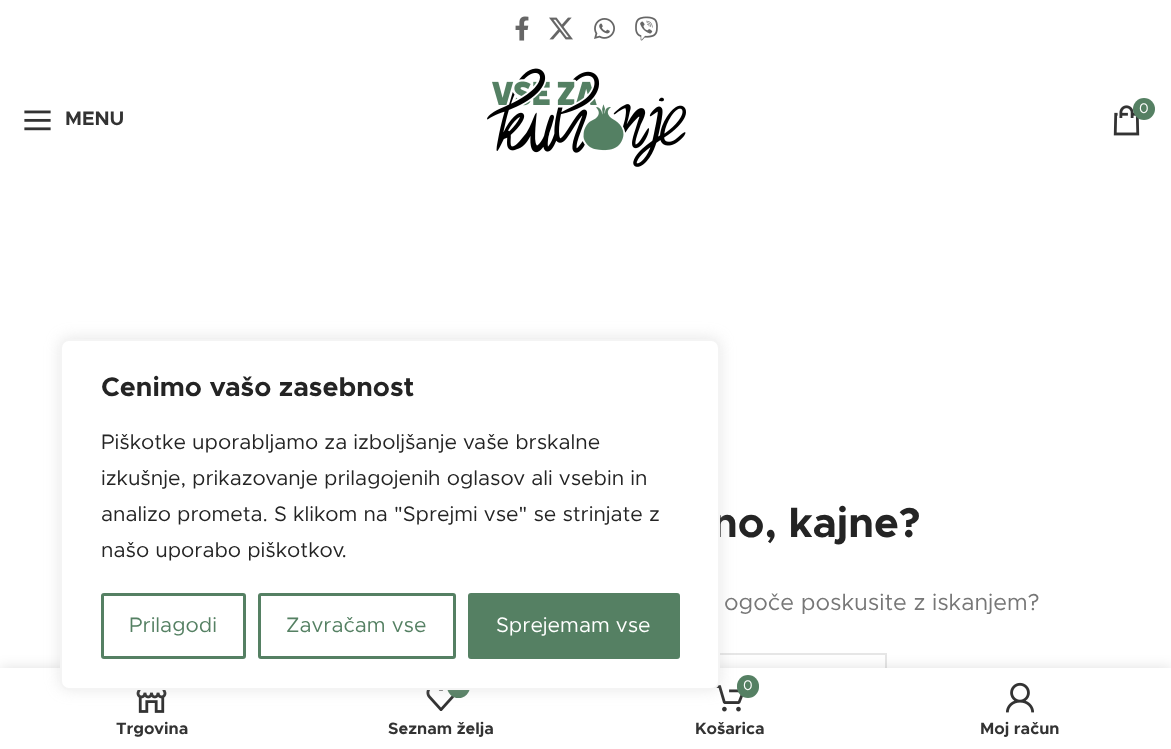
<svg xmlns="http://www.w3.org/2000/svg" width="1171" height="749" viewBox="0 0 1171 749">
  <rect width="100%" height="100%" fill="rgb(255,255,255)"/>
  <image x="515" y="16" width="14" height="25" href="pic1.png"/>
  <image x="549" y="17" width="24" height="23" href="pic2.png"/>
  <image x="594" y="18" width="21" height="21" href="pic3.png"/>
  <image x="635" y="16" width="23" height="25" href="pic4.png"/>
  <image x="487" y="68" width="199" height="99" href="pic5.png"/>
  <image x="1113" y="105" width="27" height="31" href="pic6.png"/>
  <circle cx="1144" cy="109" r="11" fill="rgb(85,128,99)"/>
  <text x="1139" y="113" font-family="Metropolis" font-size="14" fill="rgb(255,255,255)">0</text>
  <image x="24" y="110" width="27" height="21" href="pic7.png"/>
  <text x="65" y="125" font-family="Metropolis" font-size="19.5" font-weight="bold" fill="rgb(51,51,51)">MENU</text>
  <text x="712" y="537" font-family="Metropolis" font-size="42" font-weight="bold" fill="rgb(36,36,36)">no, kajne?</text>
  <text x="724" y="610" font-family="Metropolis" font-size="23.1" fill="rgb(119,119,119)">ogoče poskusite z iskanjem?</text>
  <rect x="288" y="654" width="598" height="67" fill="none" stroke="rgb(230,230,230)" stroke-width="2"/>
  <rect x="0" y="668" width="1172" height="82" fill="rgba(0,0,0,0.12)" filter="blur(7px)"/>
  <rect x="0" y="668" width="1171" height="81" fill="rgb(255,255,255)"/>
  <image x="136" y="690" width="31" height="23" href="pic8.png"/>
  <image x="426" y="690" width="29" height="21" href="pic9.png"/>
  <circle cx="458.5" cy="686.5" r="11.5" fill="rgb(85,128,99)"/>
  <image x="716" y="685" width="27" height="27" href="pic10.png"/>
  <rect x="737" y="675" width="22" height="23" rx="11" fill="rgb(85,128,99)"/>
  <rect x="60" y="338" width="660" height="351" rx="9" fill="rgba(172,171,171,0.3)" filter="blur(7.5px)"/>
  <rect x="61" y="340" width="658" height="349" rx="8" fill="rgb(255,255,255)" stroke="rgb(244,244,244)" stroke-width="2"/>
  <text x="101" y="396" font-family="Metropolis" font-size="27" font-weight="bold" fill="rgb(36,36,36)">Cenimo vašo zasebnost</text>
  <g font-family="Metropolis" font-size="21" fill="rgb(36,36,36)">
    <text>
      <tspan x="101" y="449">Piškotke uporabljamo za izboljšanje vaše brskalne</tspan>
      <tspan x="101" y="485">izkušnje, prikazovanje prilagojenih oglasov ali vsebin in</tspan>
      <tspan x="101" y="521">analizo prometa. S klikom na "Sprejmi vse" se strinjate z</tspan>
      <tspan x="101" y="557">našo uporabo piškotkov.</tspan>
    </text>
  </g>
  <rect x="102.5" y="594.5" width="142" height="63" rx="1.5" fill="none" stroke="rgb(85,128,99)" stroke-width="3"/>
  <text x="129" y="632" font-family="Metropolis" font-size="21" fill="rgb(85,128,99)">Prilagodi</text>
  <rect x="259.5" y="594.5" width="195" height="63" rx="1.5" fill="none" stroke="rgb(85,128,99)" stroke-width="3"/>
  <text x="286" y="632" font-family="Metropolis" font-size="21" fill="rgb(85,128,99)">Zavračam vse</text>
  <rect x="469.5" y="594.5" width="209" height="63" rx="1.5" fill="rgb(85,128,99)" stroke="rgb(85,128,99)" stroke-width="3"/>
  <text x="496" y="632" font-family="Metropolis" font-size="21" fill="rgb(255,255,255)">Sprejemam vse</text>
  <g font-family="Metropolis" font-size="16.5" font-weight="bold" fill="rgb(51,51,51)">
    <text x="116" y="734">Trgovina</text>
    <text x="388" y="734">Seznam želja</text>
  </g>
  <text x="743" y="690" font-family="Metropolis" font-size="14" fill="rgb(255,255,255)">0</text>
  <text x="695" y="734" font-family="Metropolis" font-size="16.5" font-weight="bold" fill="rgb(51,51,51)">Košarica</text>
  <image x="1006" y="682" width="28" height="31" href="pic11.png"/>
  <text x="980" y="734" font-family="Metropolis" font-size="16.5" font-weight="bold" fill="rgb(51,51,51)">Moj račun</text>
</svg>
